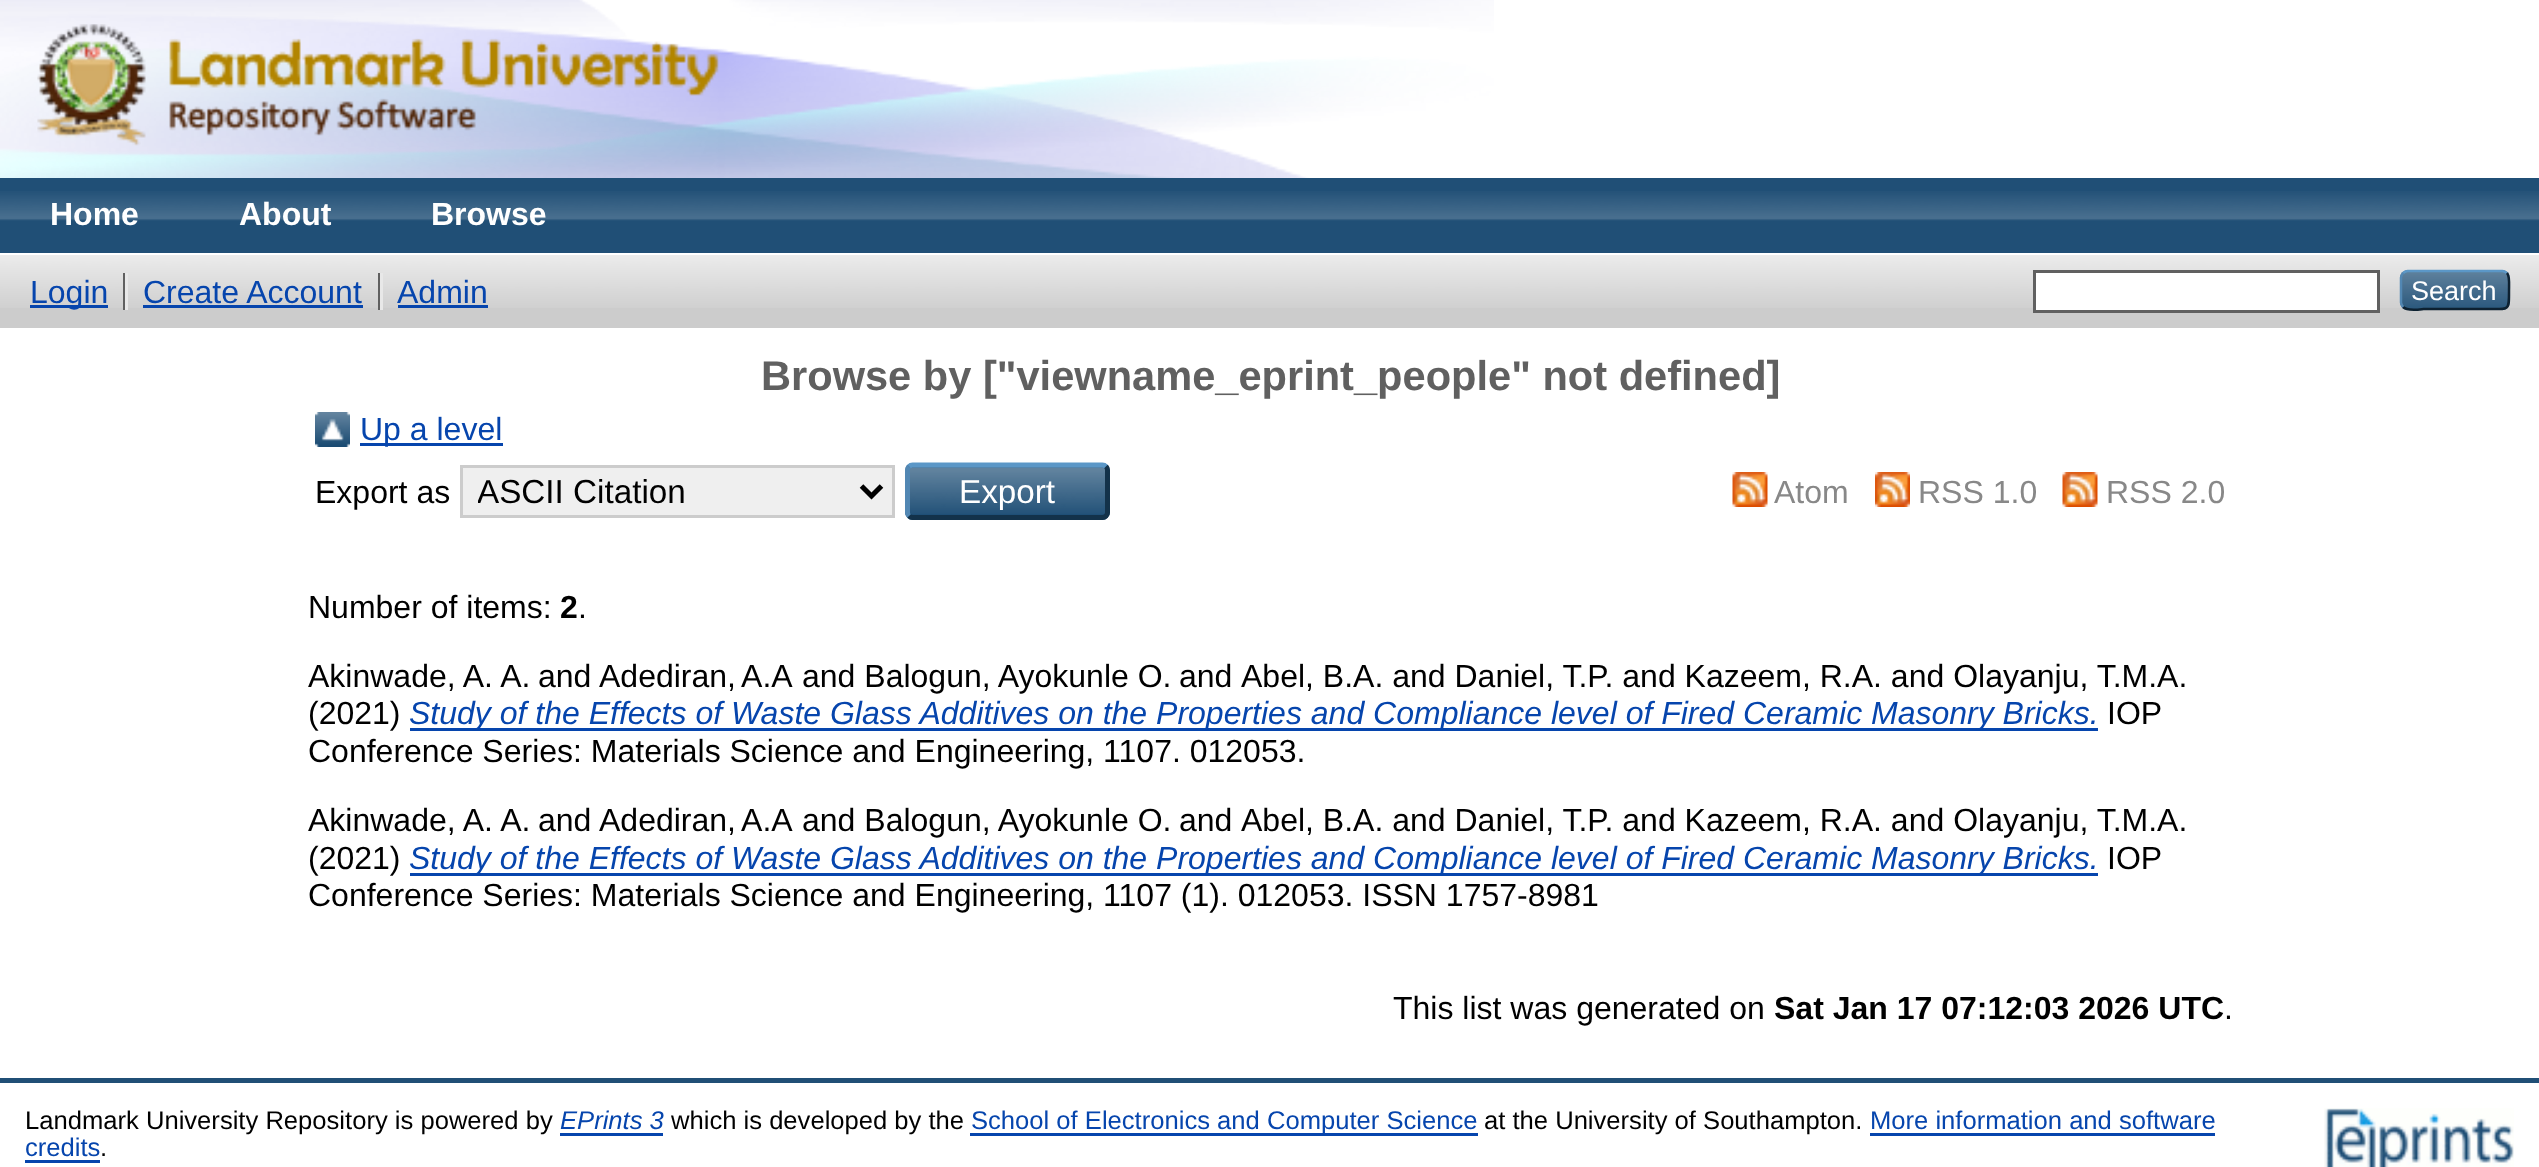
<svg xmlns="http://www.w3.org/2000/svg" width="2539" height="1167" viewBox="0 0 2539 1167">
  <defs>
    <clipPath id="clip1"><rect x="478" y="470" width="370" height="43"/></clipPath>
  </defs>
  <rect width="100%" height="100%" fill="rgb(255,255,255)"/>
  <image x="0" y="0" width="1494" height="178" href="pic1.png"/>
  <image x="37" y="24" width="682" height="122" href="pic2.png"/>
  <rect x="0" y="178" width="2539" height="75" fill="rgb(32,79,118)"/>
  <image x="0" y="191" width="2539" height="30" href="pic3.png"/>
  <g font-family="Liberation Sans" font-size="32" font-weight="bold" fill="rgb(255,255,255)">
    <text x="50" y="225">Home</text>
    <text x="239" y="225">About</text>
    <text x="431" y="225">Browse</text>
  </g>
  <rect x="0" y="255" width="2539" height="73" fill="rgb(204,204,204)"/>
  <image x="0" y="255" width="2539" height="53" href="pic4.png"/>
  <rect x="30" y="305" width="78" height="3" fill="rgb(6,69,173)"/>
  <text x="30" y="303" font-family="Liberation Sans" font-size="32" fill="rgb(6,69,173)">Login</text>
  <rect x="123" y="273" width="2" height="37" fill="rgb(96,96,96)"/>
  <text x="143" y="303" font-family="Liberation Sans" font-size="32" fill="rgb(6,69,173)">Create Account</text>
  <rect x="378" y="273" width="2" height="37" fill="rgb(96,96,96)"/>
  <rect x="125" y="273" width="3" height="37" fill="rgb(232,232,232)"/>
  <rect x="143" y="305" width="220" height="3" fill="rgb(6,69,173)"/>
  <text x="397" y="303" font-family="Liberation Sans" font-size="32" fill="rgb(6,69,173)">Admin</text>
  <rect x="380" y="273" width="3" height="37" fill="rgb(232,232,232)"/>
  <rect x="398" y="305" width="90" height="3" fill="rgb(6,69,173)"/>
  <rect x="2034.5" y="271.5" width="344" height="40" fill="rgb(255,255,255)" stroke="rgb(96,96,96)" stroke-width="3"/>
  <rect x="2400" y="270" width="110" height="40" rx="8" fill="rgb(31,79,118)"/>
  <image x="2400" y="270" width="110" height="39" href="pic5.png"/>
  <path d="M2403 273C2404.5 272 2406 271 2407.5 271H2502.5C2504 271 2505.5 272 2507 273" fill="none" stroke="rgb(91,151,199)" stroke-width="2.5"/>
  <path d="M2507 273C2510 276.5 2509 286 2509 290C2509 311.5 2510 309 2486.5 309H2423.5C2422 309 2407.5 311.5 2403 307" fill="none" stroke="rgb(13,33,49)" stroke-width="2.5"/>
  <path d="M2403 307C2402 305.5 2401 304 2401 302.5V277.5C2401 276 2402 274.5 2403 273" fill="none" stroke="rgb(82,135,179)" stroke-width="2.5"/>
  <text x="2411" y="300" font-family="Liberation Sans" font-size="27" fill="rgb(255,255,255)">Search</text>
  <text x="761" y="390" font-family="Liberation Sans" font-size="41.6" font-weight="bold" fill="rgb(96,96,96)">Browse by ["viewname_eprint_people" not defined]</text>
  <image x="315" y="412" width="35" height="35" href="pic6.png"/>
  <rect x="360" y="443" width="143" height="3" fill="rgb(6,69,173)"/>
  <text x="360" y="440" font-family="Liberation Sans" font-size="32" fill="rgb(6,69,173)">Up a level</text>
  <text x="315" y="503" font-family="Liberation Sans" font-size="32" fill="rgb(0,0,0)">Export as</text>
  <rect x="461.5" y="466.5" width="432" height="50" fill="rgb(239,239,239)" stroke="rgb(204,204,204)" stroke-width="3"/>
  <path d="M861.5 486L871.5 496L881.5 486" fill="none" stroke="rgb(0,0,0)" stroke-width="5"/>
  <g clip-path="url(#clip1)">
    <text x="477" y="503" font-family="Liberation Sans" font-size="33.25" fill="rgb(0,0,0)">ASCII Citation</text>
  </g>
  <rect x="905" y="463" width="205" height="57" rx="8" fill="rgb(31,79,118)"/>
  <image x="905" y="466" width="205" height="48" href="pic7.png"/>
  <path d="M909 466.5C910 465.5 911 465 912.5 465H1102.5C1104 465 1105 465.5 1106 466.5" fill="none" stroke="rgb(91,151,199)" stroke-width="5"/>
  <path d="M1106 466.5C1107 467.5 1107.5 468.5 1107.5 470V512.5C1107.5 514 1107 515 1106 516C1105 517 1104 517.5 1102.5 517.5H912.5C911 517.5 910 517 909 516" fill="none" stroke="rgb(19,50,74)" stroke-width="5"/>
  <path d="M909 516C908 515 907.5 514 907.5 512.5V470C907.5 468.5 908 467.5 909 466.5" fill="none" stroke="rgb(82,135,179)" stroke-width="5"/>
  <text x="959" y="503" font-family="Liberation Sans" font-size="33.25" fill="rgb(255,255,255)">Export</text>
  <image x="1732" y="472" width="36" height="35" href="pic8.png"/>
  <text x="1774" y="503" font-family="Liberation Sans" font-size="32" fill="rgb(136,136,136)">Atom</text>
  <image x="1875" y="472" width="35" height="35" href="pic9.png"/>
  <text x="1918" y="503" font-family="Liberation Sans" font-size="32" fill="rgb(136,136,136)">RSS 1.0</text>
  <image x="2062" y="472" width="36" height="35" href="pic8.png"/>
  <text x="2106" y="503" font-family="Liberation Sans" font-size="32" fill="rgb(136,136,136)">RSS 2.0</text>
  <text x="308" y="618" font-family="Liberation Sans" font-size="32" fill="rgb(0,0,0)">Number of items:</text>
  <text x="560" y="618" font-family="Liberation Sans" font-size="32" font-weight="bold" fill="rgb(0,0,0)">2</text>
  <g font-family="Liberation Sans" font-size="32" fill="rgb(0,0,0)">
    <text x="578" y="618">.</text>
    <text x="308" y="687">Akinwade, A. A.</text>
    <text x="538" y="687">and</text>
    <text x="599" y="687" word-spacing="-2">Adediran, A.A</text>
    <text x="802" y="687">and Balogun, Ayokunle O.</text>
    <text x="1179" y="687">and</text>
    <text x="1241" y="687">Abel, B.A. and Daniel, T.P. and Kazeem, R.A. and Olayanju, T.M.A.</text>
    <text x="308" y="724">(2021)</text>
  </g>
  <rect x="410" y="728" width="1688" height="3" fill="rgb(6,69,173)"/>
  <text x="409" y="724" font-family="Liberation Sans" font-size="32" font-style="italic" fill="rgb(6,69,173)">Study of the Effects of Waste Glass Additives on the Properties and Compliance level of Fired Ceramic Masonry Bricks.</text>
  <g font-family="Liberation Sans" font-size="32" fill="rgb(0,0,0)">
    <text x="2107" y="724">IOP</text>
    <text x="308" y="762">Conference Series: Materials Science and Engineering, 1107. 012053.</text>
    <text x="308" y="831">Akinwade, A. A.</text>
    <text x="538" y="831">and</text>
    <text x="599" y="831" word-spacing="-2">Adediran, A.A</text>
    <text x="802" y="831">and Balogun, Ayokunle O.</text>
    <text x="1179" y="831">and</text>
    <text x="1241" y="831">Abel, B.A. and Daniel, T.P. and Kazeem, R.A. and Olayanju, T.M.A.</text>
    <text x="308" y="869">(2021)</text>
  </g>
  <rect x="410" y="873" width="1688" height="3" fill="rgb(6,69,173)"/>
  <text x="409" y="869" font-family="Liberation Sans" font-size="32" font-style="italic" fill="rgb(6,69,173)">Study of the Effects of Waste Glass Additives on the Properties and Compliance level of Fired Ceramic Masonry Bricks.</text>
  <g font-family="Liberation Sans" font-size="32" fill="rgb(0,0,0)">
    <text x="2107" y="869">IOP</text>
    <text x="308" y="906">Conference Series: Materials Science and Engineering, 1107 (1). 012053. ISSN 1757-8981</text>
    <text x="1393" y="1019">This list was generated on</text>
  </g>
  <text x="1774" y="1019" font-family="Liberation Sans" font-size="32" font-weight="bold" fill="rgb(0,0,0)">Sat Jan 17 07:12:03 2026 UTC</text>
  <text x="2224" y="1019" font-family="Liberation Sans" font-size="32" fill="rgb(0,0,0)">.</text>
  <rect x="0" y="1078" width="2539" height="5" fill="rgb(32,79,118)"/>
  <text x="25" y="1129" font-family="Liberation Sans" font-size="25.6" fill="rgb(0,0,0)">Landmark University Repository is powered by</text>
  <text x="560" y="1129" font-family="Liberation Sans" font-size="25.6" font-style="italic" fill="rgb(6,69,173)">EPrints 3</text>
  <rect x="560" y="1133" width="103" height="3" fill="rgb(6,69,173)"/>
  <text x="671" y="1129" font-family="Liberation Sans" font-size="25.6" fill="rgb(0,0,0)">which is developed by the</text>
  <rect x="970" y="1133" width="508" height="3" fill="rgb(6,69,173)"/>
  <text x="971" y="1129" font-family="Liberation Sans" font-size="25.6" fill="rgb(6,69,173)">School of Electronics and Computer Science</text>
  <text x="1484" y="1129" font-family="Liberation Sans" font-size="25.6" fill="rgb(0,0,0)">at the University of Southampton.</text>
  <text x="1870" y="1129" font-family="Liberation Sans" font-size="25.6" fill="rgb(6,69,173)">More information and software</text>
  <rect x="1870" y="1133" width="345" height="3" fill="rgb(6,69,173)"/>
  <text x="25" y="1156" font-family="Liberation Sans" font-size="25.6" fill="rgb(6,69,173)">credits</text>
  <rect x="25" y="1160" width="75" height="3" fill="rgb(6,69,173)"/>
  <text x="100" y="1156" font-family="Liberation Sans" font-size="25.6" fill="rgb(0,0,0)">.</text>
  <image x="2324" y="1108" width="190" height="59" href="pic10.png"/>
</svg>
